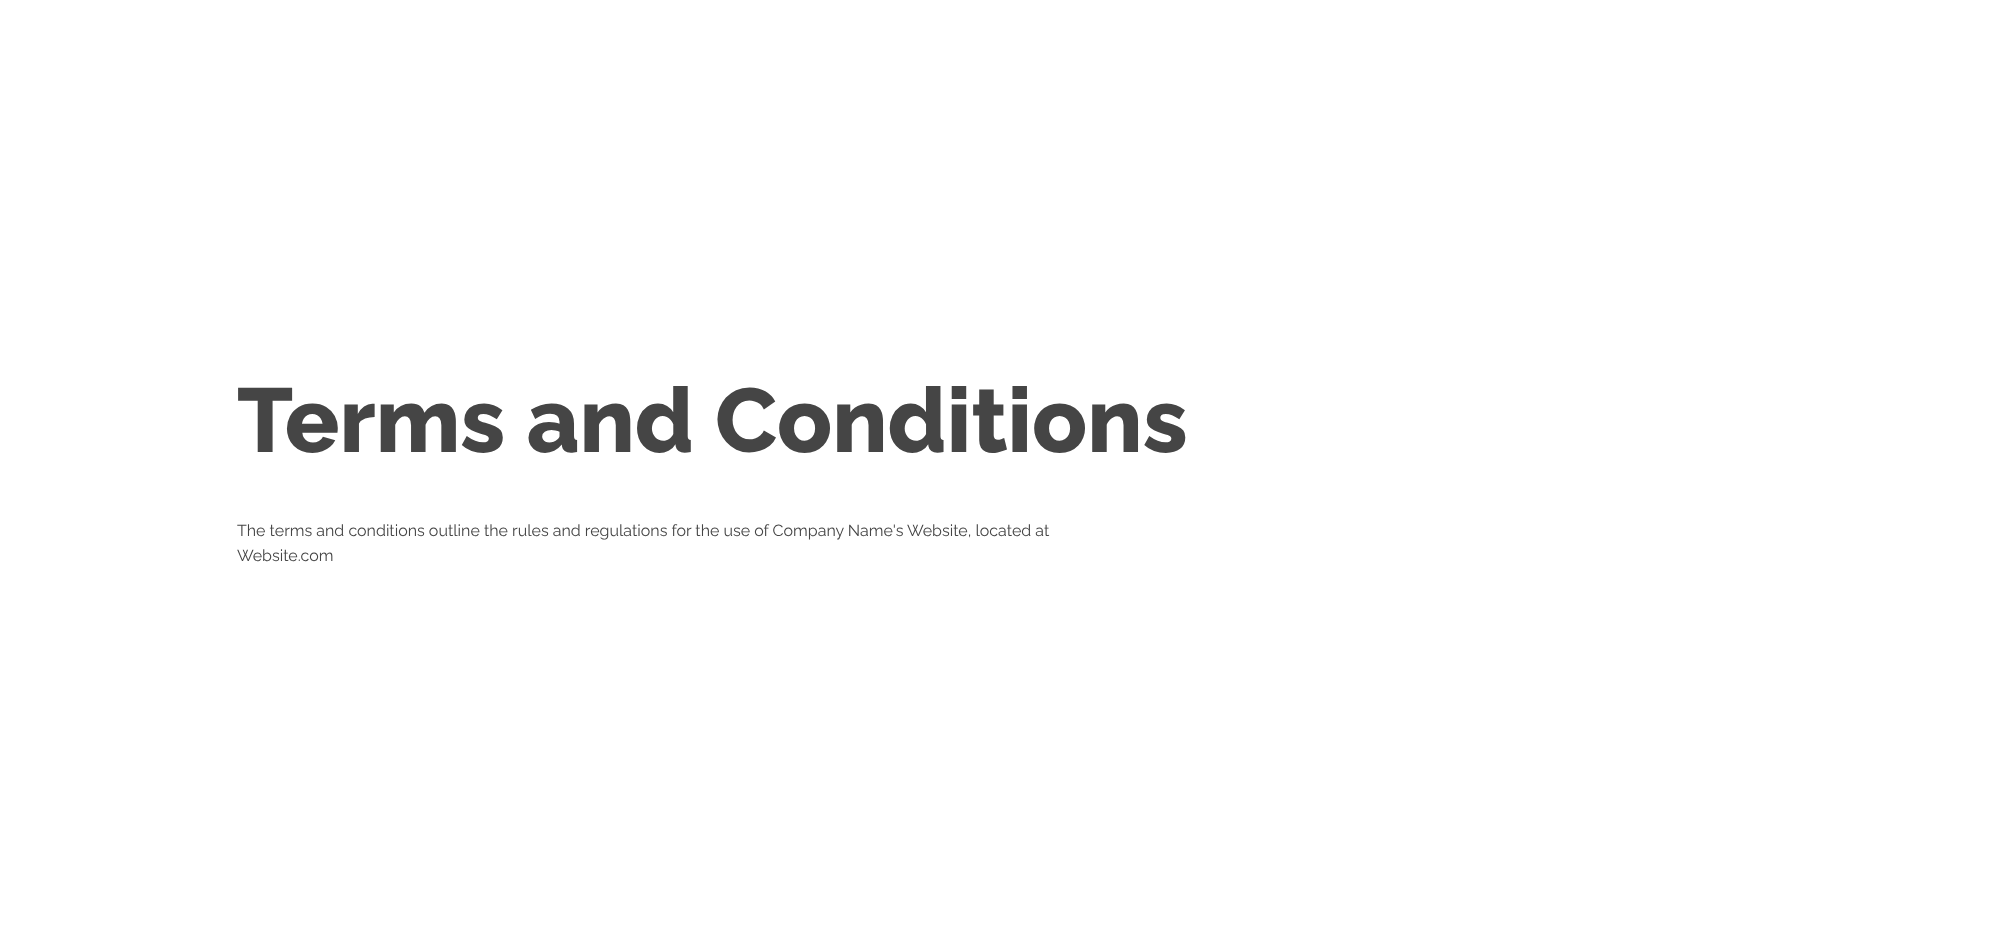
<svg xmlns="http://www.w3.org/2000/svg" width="1994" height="935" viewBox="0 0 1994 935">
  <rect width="100%" height="100%" fill="rgb(255,255,255)"/>
  <text x="237" y="452" font-family="Raleway" font-size="90.5" font-weight="800" fill="rgb(69,69,69)">Terms and Conditions</text>
  <g font-family="Raleway" font-size="16" fill="rgb(69,69,69)">
    <text>
      <tspan x="237" y="536">The terms and conditions outline the rules and regulations for the use of Company Name's Website, located at</tspan>
      <tspan x="237" y="561">Website.com</tspan>
    </text>
  </g>
</svg>
